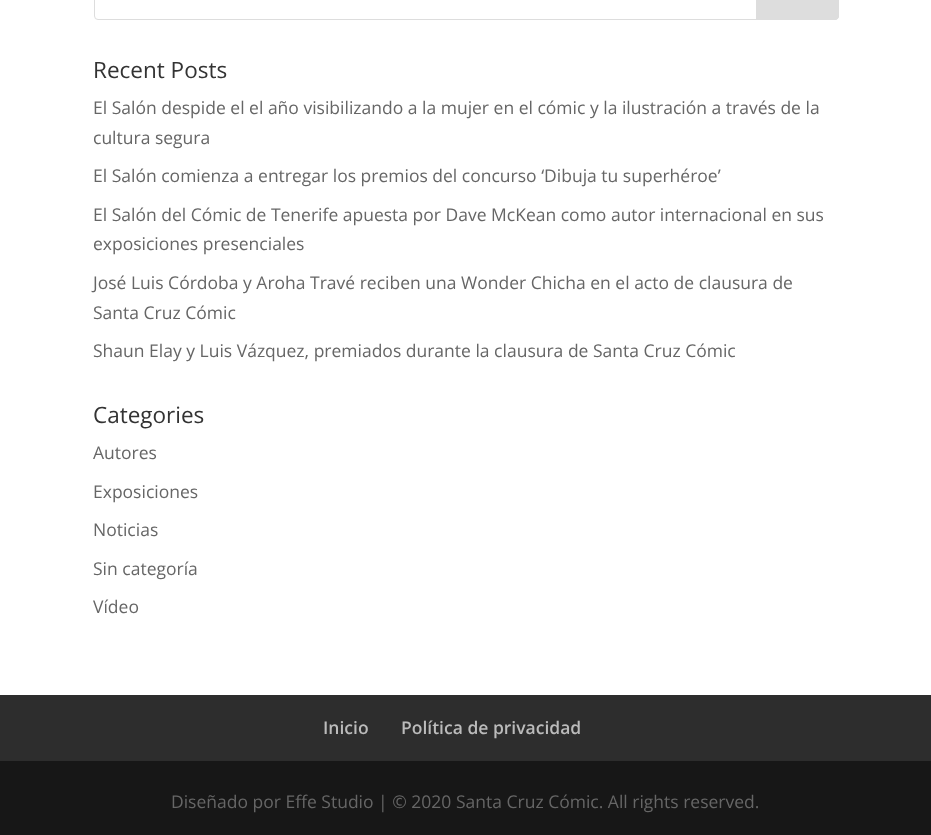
<svg xmlns="http://www.w3.org/2000/svg" width="931" height="835" viewBox="0 0 931 835">
  <rect width="100%" height="100%" fill="rgb(255,255,255)"/>
  <rect x="94.5" y="-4.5" width="744" height="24" rx="3.5" fill="none" stroke="rgb(221,221,221)"/>
  <path d="M756.5-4.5H835C837-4.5 838.5-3 838.5-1V16C838.5 18 837 19.5 835 19.5H756.5Z" fill="rgb(221,221,221)" stroke="rgb(221,221,221)"/>
  <text x="93" y="78" font-family="Open Sans" font-size="22.5" fill="rgb(51,51,51)">Recent Posts</text>
  <g font-family="Open Sans" font-size="17.5" fill="rgb(102,102,102)">
    <text>
      <tspan x="93" y="114">El Salón despide el el año visibilizando a la mujer en el cómic y la ilustración a través de la</tspan>
      <tspan x="93" y="144">cultura segura</tspan>
    </text>
    <text x="93" y="182">El Salón comienza a entregar los premios del concurso ‘Dibuja tu superhéroe’</text>
    <text>
      <tspan x="93" y="221">El Salón del Cómic de Tenerife apuesta por Dave McKean como autor internacional en sus</tspan>
      <tspan x="93" y="250">exposiciones presenciales</tspan>
    </text>
    <text>
      <tspan x="93" y="289">José Luis Córdoba y Aroha Travé reciben una Wonder Chicha en el acto de clausura de</tspan>
      <tspan x="93" y="319">Santa Cruz Cómic</tspan>
    </text>
    <text x="93" y="357">Shaun Elay y Luis Vázquez, premiados durante la clausura de Santa Cruz Cómic</text>
  </g>
  <text x="93" y="423" font-family="Open Sans" font-size="22.5" fill="rgb(51,51,51)">Categories</text>
  <g font-family="Open Sans" font-size="17.5" fill="rgb(102,102,102)">
    <text x="93" y="459">Autores</text>
    <text x="93" y="498">Exposiciones</text>
    <text x="93" y="536">Noticias</text>
    <text x="93" y="575">Sin categoría</text>
    <text x="93" y="613">Vídeo</text>
  </g>
  <rect x="0" y="695" width="931" height="66" fill="rgb(45,45,45)"/>
  <g font-family="Open Sans" font-size="17.5" font-weight="600" fill="rgb(187,187,187)">
    <text x="323" y="734">Inicio</text>
    <text x="401" y="734">Política de privacidad</text>
  </g>
  <rect x="0" y="761" width="931" height="74" fill="rgb(23,23,23)"/>
  <text x="171" y="808" font-family="Open Sans" font-size="17.5" fill="rgb(102,102,102)">Diseñado por Effe Studio | © 2020 Santa Cruz Cómic. All rights reserved.</text>
</svg>
